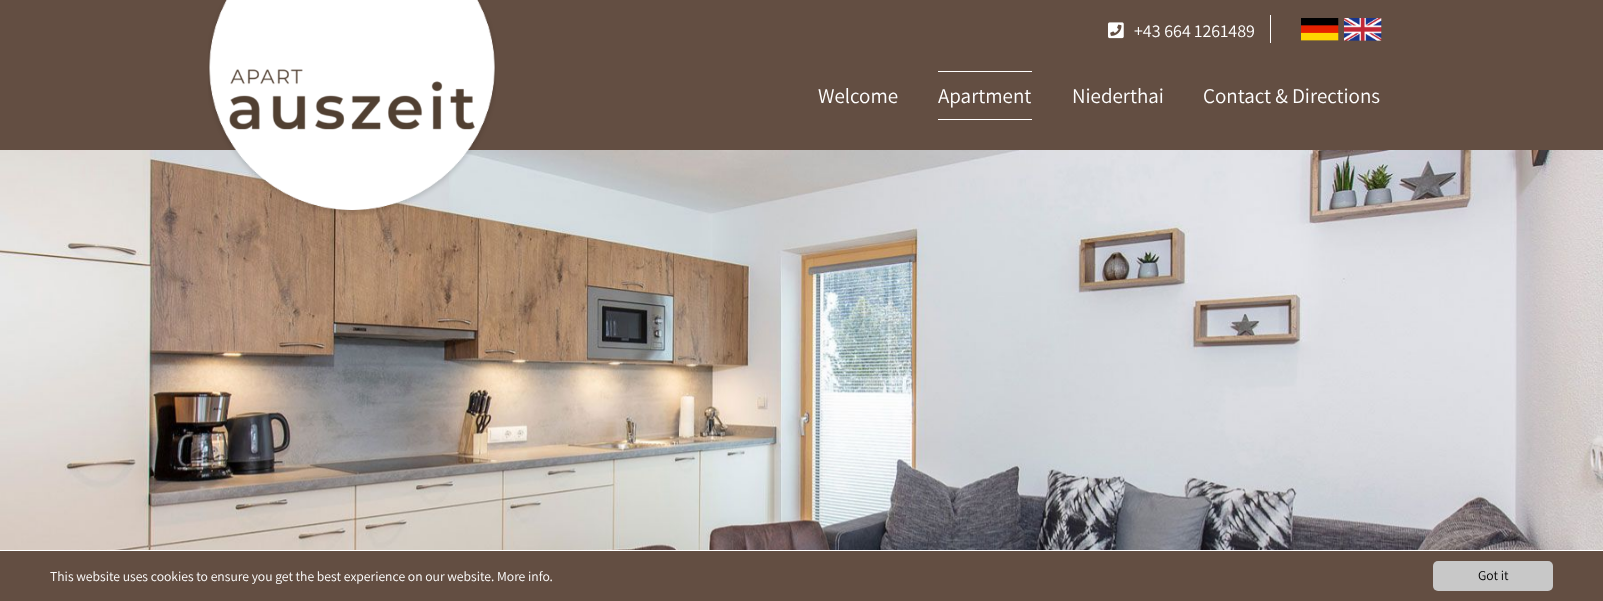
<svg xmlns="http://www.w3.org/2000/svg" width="1603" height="601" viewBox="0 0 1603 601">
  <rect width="100%" height="100%" fill="rgb(99,78,66)"/>
  <image x="0" y="150" width="1603" height="400" href="pic6.png"/>
  <image x="208" y="0" width="288" height="215" href="pic1.png"/>
  <image x="229" y="69" width="246" height="61" href="pic2.png"/>
  <rect x="1270" y="15" width="1" height="28" fill="rgb(255,255,255)"/>
  <image x="1108" y="22" width="16" height="17" href="pic3.png"/>
  <text x="1134" y="37" font-family="Assistant" font-size="18" fill="rgb(255,255,255)">+43 664 1261489</text>
  <image x="1301" y="18" width="38" height="23" href="pic4.png"/>
  <image x="1344" y="18" width="38" height="23" href="pic5.png"/>
  <g font-family="Assistant" font-size="21" fill="rgb(255,255,255)">
    <text x="818" y="103">Welcome</text>
    <text x="938" y="103">Apartment</text>
  </g>
  <rect x="938" y="71" width="94" height="1" fill="rgb(255,255,255)"/>
  <rect x="938" y="119" width="94" height="1" fill="rgb(255,255,255)"/>
  <g font-family="Assistant" font-size="21" fill="rgb(255,255,255)">
    <text x="1072" y="103">Niederthai</text>
    <text x="1203" y="103">Contact &amp; Directions</text>
  </g>
  <rect x="0" y="550" width="1603" height="1" fill="rgb(255,255,255)"/>
  <text x="50" y="581" font-family="Assistant" font-size="13.6" fill="rgb(255,255,255)">This website uses cookies to ensure you get the best experience on our website. More info.</text>
  <rect x="1433" y="561" width="120" height="30" rx="5" fill="rgb(200,200,200)"/>
  <text x="1478" y="580" font-family="Assistant" font-size="13.6" fill="rgb(0,0,0)">Got it</text>
</svg>
